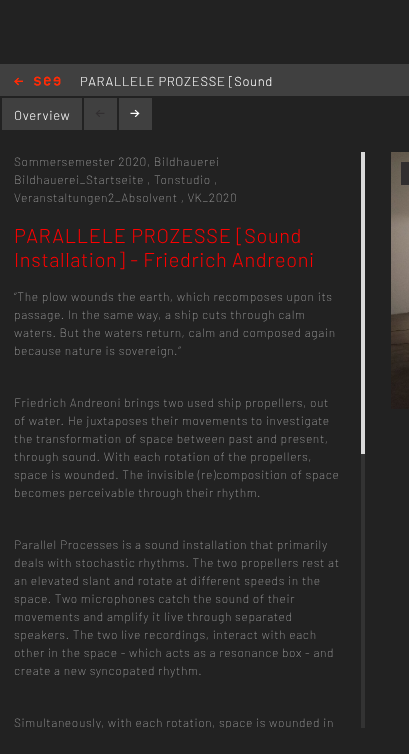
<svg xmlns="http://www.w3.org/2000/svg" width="409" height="754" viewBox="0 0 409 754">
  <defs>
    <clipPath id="clip1"><rect x="14" y="152" width="328" height="576"/></clipPath>
  </defs>
  <rect width="100%" height="100%" fill="rgb(34,34,34)"/>
  <rect x="0" y="64" width="409" height="32" fill="rgb(64,64,64)"/>
  <image x="14" y="76" width="47" height="10" href="pic1.png"/>
  <text x="80" y="86" font-family="Barlow" font-size="13" font-weight="300" letter-spacing="0.65" fill="rgb(255,255,255)">PARALLELE PROZESSE [Sound</text>
  <rect x="2" y="98" width="80" height="32" fill="rgb(64,64,64)"/>
  <text x="14" y="120" font-family="Barlow" font-size="13" font-weight="300" letter-spacing="0.65" fill="rgb(255,255,255)">Overview</text>
  <rect x="84" y="98" width="33" height="32" fill="rgb(64,64,64)"/>
  <image x="95" y="110" width="10" height="7" href="pic2.png"/>
  <rect x="119" y="98" width="33" height="32" fill="rgb(64,64,64)"/>
  <image x="130" y="109" width="10" height="8" href="pic3.png"/>
  <g font-family="Barlow" font-size="12" font-weight="200" letter-spacing="0.65" fill="rgb(153,153,153)">
    <text>
      <tspan x="14" y="166">Sommersemester 2020, Bildhauerei</tspan>
      <tspan x="14" y="184">Bildhauerei_Startseite , Tonstudio ,</tspan>
      <tspan x="14" y="202">Veranstaltungen2_Absolvent , VK_2020</tspan>
    </text>
  </g>
  <g font-family="Barlow" font-size="20" font-weight="300" letter-spacing="0.65" fill="rgb(255,0,0)">
    <text>
      <tspan x="14" y="243">PARALLELE PROZESSE [Sound</tspan>
      <tspan x="14" y="267">Installation] - Friedrich Andreoni</tspan>
    </text>
  </g>
  <g font-family="Barlow" font-size="12" font-weight="200" letter-spacing="0.65" fill="rgb(153,153,153)">
    <text>
      <tspan x="14" y="301">“The plow wounds the earth, which recomposes upon its</tspan>
      <tspan x="14" y="319">passage. In the same way, a ship cuts through calm</tspan>
      <tspan x="14" y="337">waters. But the waters return, calm and composed again</tspan>
      <tspan x="14" y="355">because nature is sovereign.”</tspan>
    </text>
    <text>
      <tspan x="14" y="407">Friedrich Andreoni brings two used ship propellers, out</tspan>
      <tspan x="14" y="425">of water. He juxtaposes their movements to investigate</tspan>
      <tspan x="14" y="443">the transformation of space between past and present,</tspan>
      <tspan x="14" y="461">through sound. With each rotation of the propellers,</tspan>
      <tspan x="14" y="479">space is wounded. The invisible (re)composition of space</tspan>
      <tspan x="14" y="497">becomes perceivable through their rhythm.</tspan>
    </text>
    <text>
      <tspan x="14" y="549">Parallel Processes is a sound installation that primarily</tspan>
      <tspan x="14" y="567">deals with stochastic rhythms. The two propellers rest at</tspan>
      <tspan x="14" y="585">an elevated slant and rotate at different speeds in the</tspan>
      <tspan x="14" y="603">space. Two microphones catch the sound of their</tspan>
      <tspan x="14" y="621">movements and amplify it live through separated</tspan>
      <tspan x="14" y="639">speakers. The two live recordings, interact with each</tspan>
      <tspan x="14" y="657">other in the space - which acts as a resonance box - and</tspan>
      <tspan x="14" y="675">create a new syncopated rhythm.</tspan>
    </text>
  </g>
  <g clip-path="url(#clip1)">
    <text x="14" y="727" font-family="Barlow" font-size="12" font-weight="200" letter-spacing="0.65" fill="rgb(153,153,153)">Simultaneously, with each rotation, space is wounded in</text>
  </g>
  <rect x="361" y="454" width="4" height="274" fill="rgb(51,51,51)"/>
  <rect x="361" y="152" width="4" height="302" fill="rgb(218,218,218)"/>
  <image x="391" y="152" width="18" height="257" href="pic4.png"/>
  <rect x="401" y="162" width="8" height="23" fill="rgb(49,46,48)"/>
</svg>
